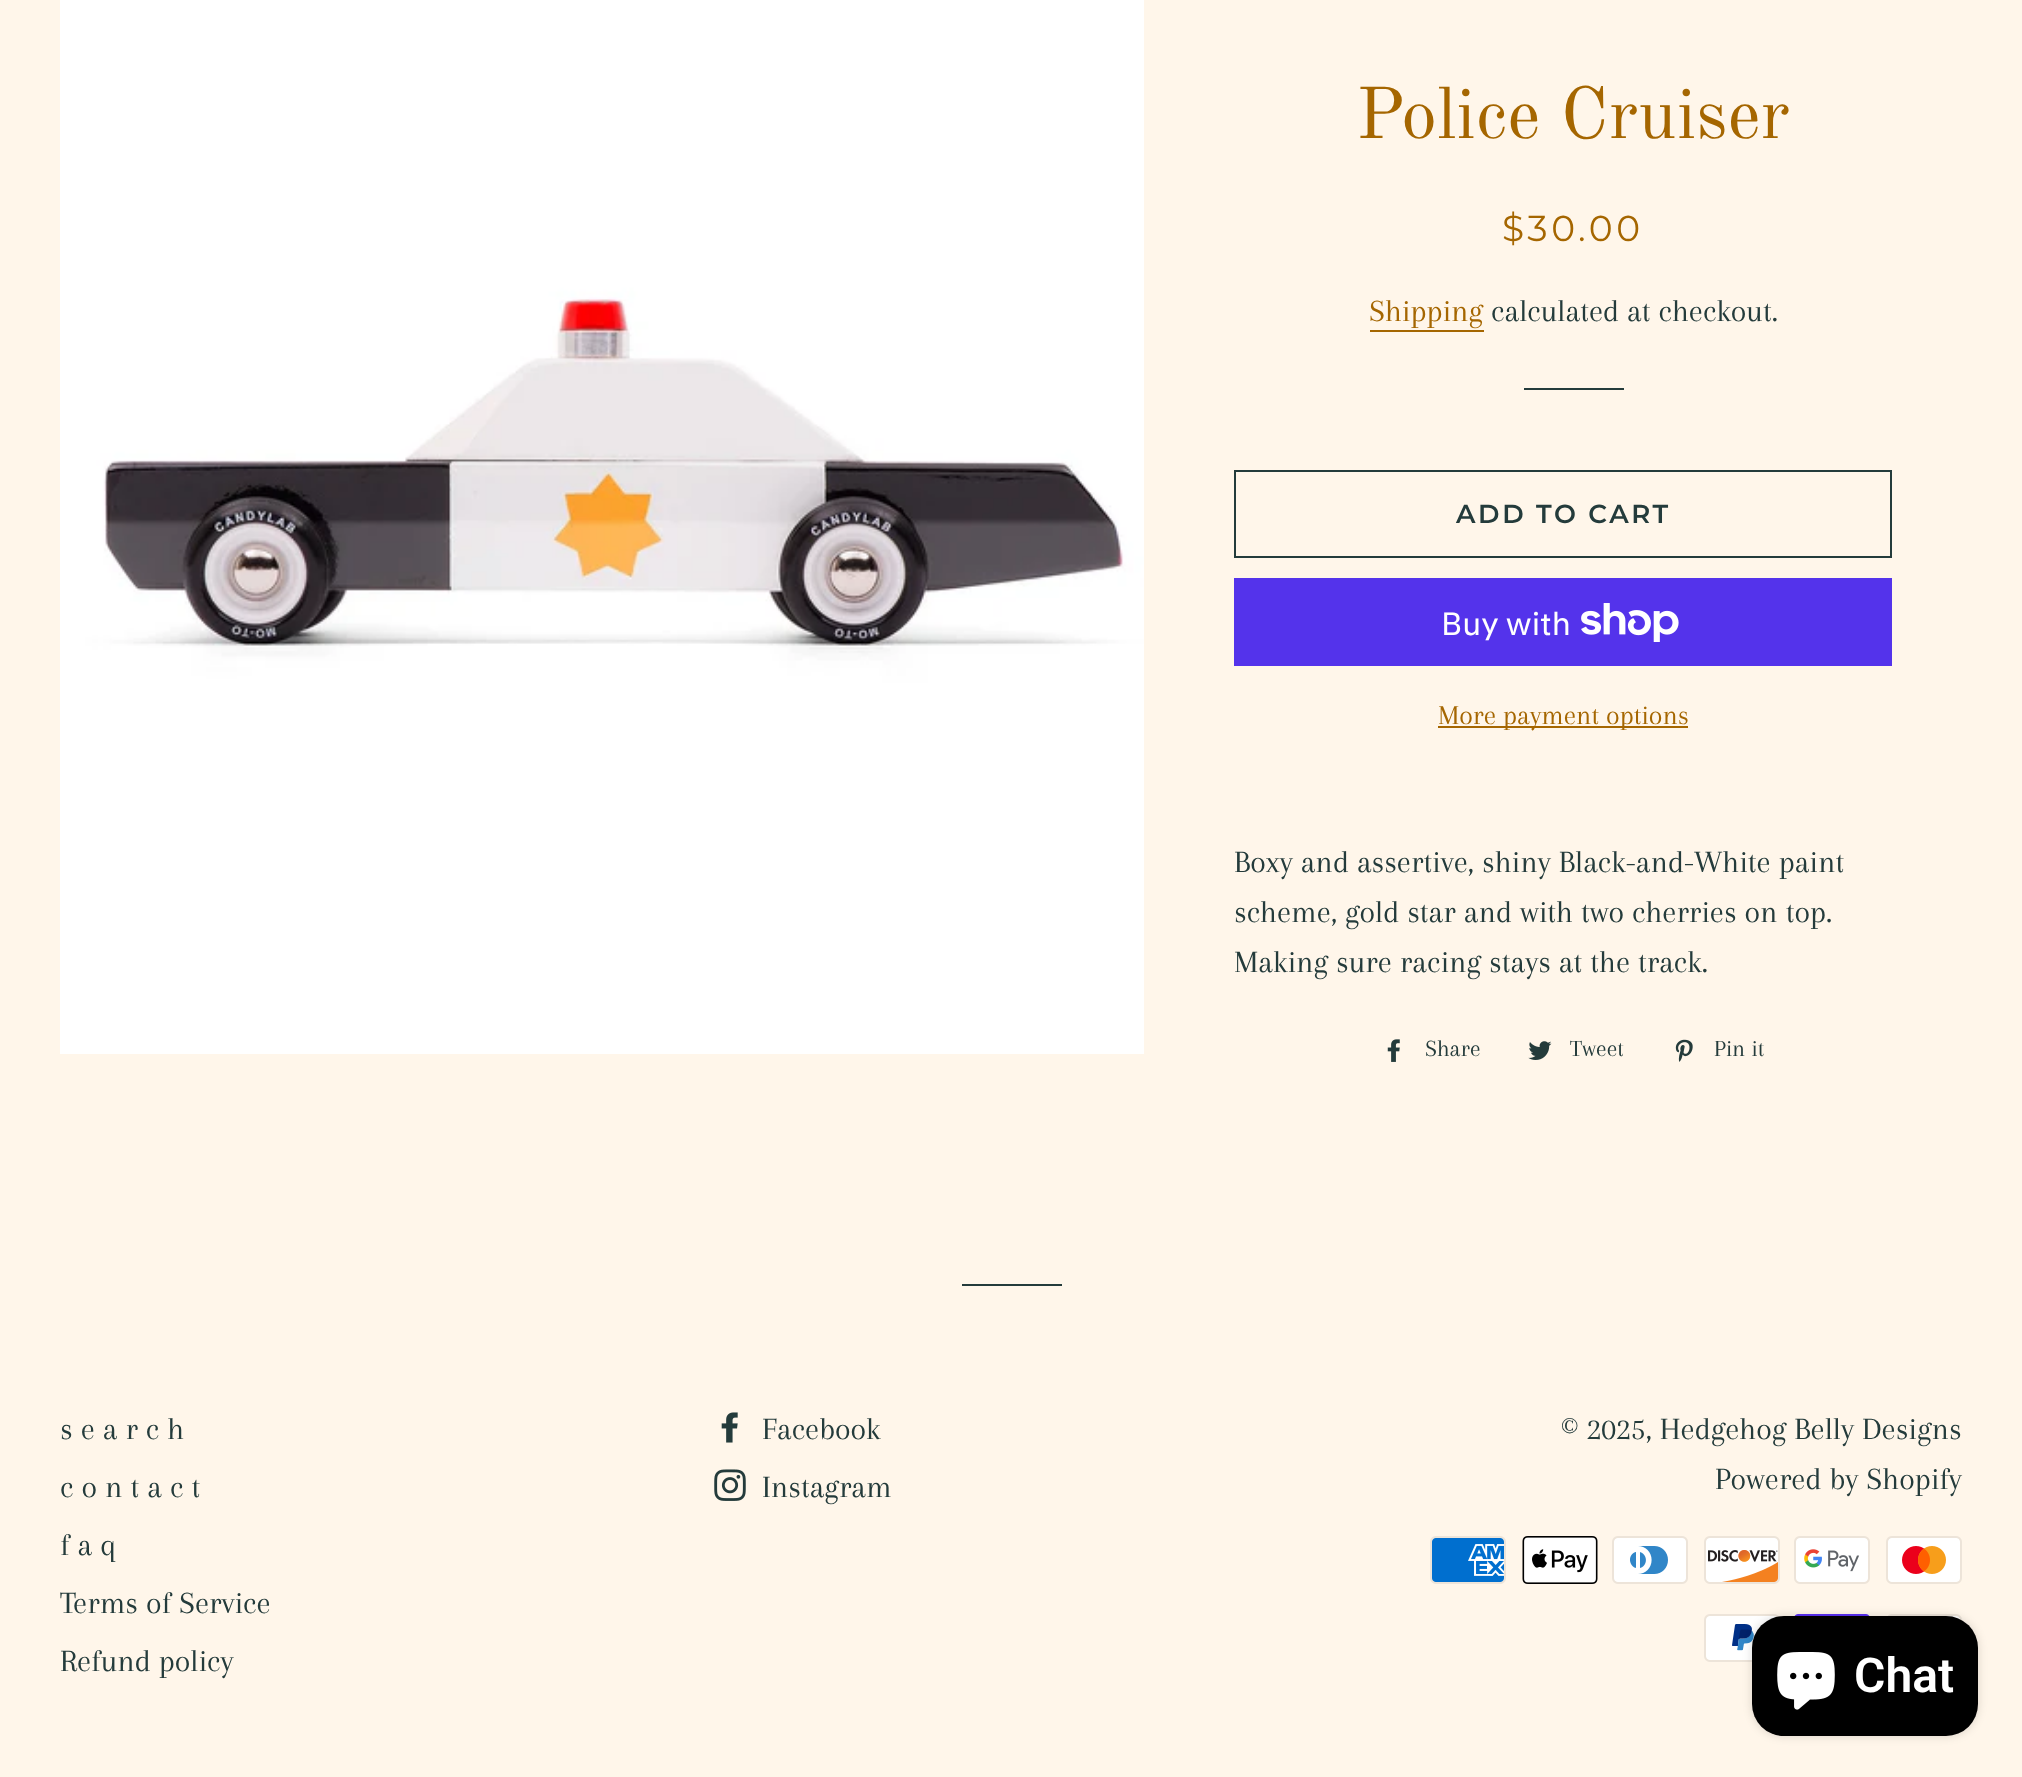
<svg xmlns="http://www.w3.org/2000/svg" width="2022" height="1777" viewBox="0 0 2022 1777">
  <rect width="100%" height="100%" fill="rgb(255,246,234)"/>
  <image x="60" y="0" width="1084" height="1054" href="pic1.png"/>
  <text x="1356" y="138" font-family="Old Standard TT" font-size="72" fill="rgb(165,102,0)">Police Cruiser</text>
  <text x="1502" y="241" font-family="Montserrat" font-size="36" font-weight="100" letter-spacing="3.5" fill="rgb(165,102,0)">$30.00</text>
  <text x="1369" y="321" font-family="Arapey" font-size="32" fill="rgb(165,102,0)">Shipping</text>
  <rect x="1370" y="330" width="114" height="2" fill="rgb(165,102,0)"/>
  <text x="1491" y="321" font-family="Arapey" font-size="32" fill="rgb(36,59,59)">calculated at checkout.</text>
  <rect x="1524" y="388" width="100" height="2" fill="rgb(36,59,59)"/>
  <rect x="1235" y="471" width="656" height="86" fill="none" stroke="rgb(36,59,59)" stroke-width="2"/>
  <text x="1456" y="523" font-family="Montserrat" font-size="26" font-weight="600" letter-spacing="2.6" fill="rgb(36,59,59)">ADD TO CART</text>
  <rect x="1234" y="578" width="658" height="88" fill="rgb(84,51,235)"/>
  <text x="1441" y="635" font-family="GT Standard" font-size="32" fill="rgb(255,255,255)">Buy with</text>
  <image x="1581" y="603" width="98" height="39" href="pic2.png"/>
  <rect x="1438" y="726" width="250" height="2" fill="rgb(165,102,0)"/>
  <text x="1438" y="724" font-family="Arapey" font-size="28" fill="rgb(165,102,0)">More payment options</text>
  <g font-family="Arapey" font-size="32" fill="rgb(36,59,59)">
    <text>
      <tspan x="1234" y="872">Boxy and assertive, shiny Black-and-White paint</tspan>
      <tspan x="1234" y="922">scheme, gold star and with two cherries on top.</tspan>
      <tspan x="1234" y="972">Making sure racing stays at the track.</tspan>
    </text>
  </g>
  <image x="1387" y="1039" width="13" height="23" href="pic3.png"/>
  <text x="1425" y="1056" font-family="Arapey" font-size="24" fill="rgb(36,59,59)">Share</text>
  <image x="1528" y="1041" width="24" height="19" href="pic4.png"/>
  <text x="1570" y="1056" font-family="Arapey" font-size="24" fill="rgb(36,59,59)">Tweet</text>
  <image x="1675" y="1039" width="18" height="23" href="pic5.png"/>
  <text x="1714" y="1056" font-family="Arapey" font-size="24" fill="rgb(36,59,59)">Pin it</text>
  <rect x="962" y="1284" width="100" height="2" fill="rgb(36,59,59)"/>
  <g font-family="Arapey" font-size="32" fill="rgb(36,59,59)">
    <text>
      <tspan x="60" y="1439">s e a r c h</tspan>
      <tspan x="60" y="1497">c o n t a c t</tspan>
      <tspan x="60" y="1555">f a q</tspan>
      <tspan x="60" y="1613">Terms of Service</tspan>
      <tspan x="60" y="1671">Refund policy</tspan>
    </text>
  </g>
  <image x="721" y="1412" width="17" height="31" href="pic6.png"/>
  <text x="762" y="1439" font-family="Arapey" font-size="32" fill="rgb(36,59,59)">Facebook</text>
  <image x="714" y="1469" width="32" height="32" href="pic7.png"/>
  <g font-family="Arapey" font-size="32" fill="rgb(36,59,59)">
    <text x="762" y="1497">Instagram</text>
    <text x="1561" y="1439">© 2025, Hedgehog Belly Designs</text>
    <text x="1715" y="1489">Powered by Shopify</text>
  </g>
  <image x="1430" y="1536" width="76" height="48" href="pic8.png"/>
  <image x="1522" y="1536" width="76" height="48" href="pic9.png"/>
  <image x="1612" y="1536" width="76" height="48" href="pic10.png"/>
  <image x="1704" y="1536" width="76" height="48" href="pic11.png"/>
  <image x="1794" y="1536" width="76" height="48" href="pic12.png"/>
  <image x="1886" y="1536" width="76" height="48" href="pic13.png"/>
  <image x="1704" y="1614" width="75" height="48" href="pic14.png"/>
  <image x="1794" y="1614" width="76" height="2" href="pic15.png"/>
  <image x="1888" y="1614" width="74" height="7" href="pic16.png"/>
  <rect x="1752" y="1616" width="226" height="120" rx="32" fill="rgba(0,0,0,0.15)" filter="blur(5px)"/>
  <rect x="1752" y="1616" width="226" height="120" rx="32" fill="rgb(0,0,0)"/>
  <image x="1777" y="1652" width="58" height="58" href="pic17.png"/>
  <text x="1854" y="1692" font-family="Roboto" font-size="48" font-weight="600" fill="rgb(255,255,255)">Chat</text>
</svg>
